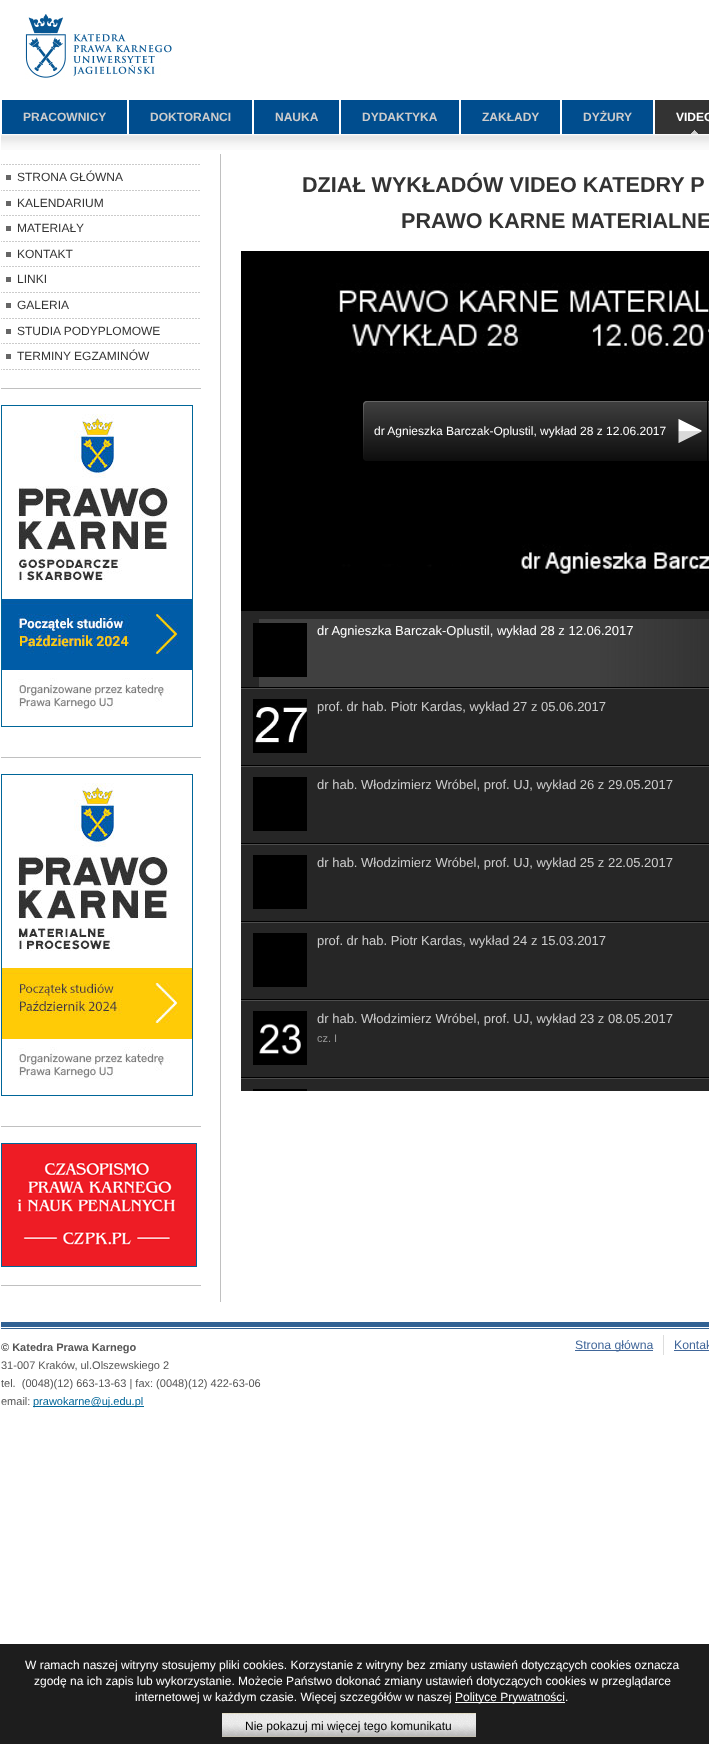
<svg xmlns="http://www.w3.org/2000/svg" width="709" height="1744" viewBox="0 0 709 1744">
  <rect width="100%" height="100%" fill="rgb(255,255,255)"/>
  <image x="25" y="14" width="148" height="65" href="pic1.png"/>
  <rect x="2" y="100" width="651" height="34" fill="rgb(0,77,142)"/>
  <rect x="127" y="100" width="2" height="34" fill="rgb(255,255,255)"/>
  <text x="23" y="121" font-family="Liberation Sans" font-size="12" font-weight="bold" fill="rgb(204,204,204)">PRACOWNICY</text>
  <rect x="252" y="100" width="2" height="34" fill="rgb(255,255,255)"/>
  <text x="150" y="121" font-family="Liberation Sans" font-size="12" font-weight="bold" fill="rgb(204,204,204)">DOKTORANCI</text>
  <rect x="339" y="100" width="2" height="34" fill="rgb(255,255,255)"/>
  <text x="275" y="121" font-family="Liberation Sans" font-size="12" font-weight="bold" fill="rgb(204,204,204)">NAUKA</text>
  <rect x="459" y="100" width="2" height="34" fill="rgb(255,255,255)"/>
  <text x="362" y="121" font-family="Liberation Sans" font-size="12" font-weight="bold" fill="rgb(204,204,204)">DYDAKTYKA</text>
  <rect x="560" y="100" width="2" height="34" fill="rgb(255,255,255)"/>
  <g font-family="Liberation Sans" font-size="12" font-weight="bold" fill="rgb(204,204,204)">
    <text x="482" y="121">ZAKŁADY</text>
    <text x="583" y="121">DYŻURY</text>
  </g>
  <rect x="655" y="100" width="54" height="34" fill="rgb(51,51,51)"/>
  <image x="691" y="130" width="7" height="4" href="pic2.png"/>
  <text x="676" y="121" font-family="Liberation Sans" font-size="12" font-weight="bold" fill="rgb(255,255,255)">VIDEO</text>
  <image x="1" y="134" width="708" height="16" href="pic3.png"/>
  <rect x="220" y="154" width="1" height="1148" fill="rgb(192,192,192)"/>
  <rect x="1" y="388" width="200" height="1" fill="rgb(192,192,192)"/>
  <image x="1" y="164" width="199" height="1" href="pic4.png"/>
  <image x="1" y="190" width="199" height="1" href="pic4.png"/>
  <text x="17" y="181" font-family="Liberation Sans" font-size="12" fill="rgb(51,51,51)">STRONA GŁÓWNA</text>
  <rect x="6" y="175" width="5" height="5" fill="rgb(102,102,102)"/>
  <image x="1" y="215" width="199" height="1" href="pic4.png"/>
  <text x="17" y="207" font-family="Liberation Sans" font-size="12" fill="rgb(51,51,51)">KALENDARIUM</text>
  <rect x="6" y="201" width="5" height="5" fill="rgb(102,102,102)"/>
  <image x="1" y="241" width="199" height="1" href="pic4.png"/>
  <text x="17" y="232" font-family="Liberation Sans" font-size="12" fill="rgb(51,51,51)">MATERIAŁY</text>
  <rect x="6" y="226" width="5" height="5" fill="rgb(102,102,102)"/>
  <image x="1" y="266" width="199" height="1" href="pic4.png"/>
  <text x="17" y="258" font-family="Liberation Sans" font-size="12" fill="rgb(51,51,51)">KONTAKT</text>
  <rect x="6" y="252" width="5" height="5" fill="rgb(102,102,102)"/>
  <image x="1" y="292" width="199" height="1" href="pic4.png"/>
  <text x="17" y="283" font-family="Liberation Sans" font-size="12" fill="rgb(51,51,51)">LINKI</text>
  <rect x="6" y="277" width="5" height="5" fill="rgb(102,102,102)"/>
  <image x="1" y="318" width="199" height="1" href="pic4.png"/>
  <text x="17" y="309" font-family="Liberation Sans" font-size="12" fill="rgb(51,51,51)">GALERIA</text>
  <rect x="6" y="303" width="5" height="5" fill="rgb(102,102,102)"/>
  <image x="1" y="343" width="199" height="1" href="pic4.png"/>
  <text x="17" y="335" font-family="Liberation Sans" font-size="12" fill="rgb(51,51,51)">STUDIA PODYPLOMOWE</text>
  <rect x="6" y="329" width="5" height="5" fill="rgb(102,102,102)"/>
  <image x="1" y="369" width="199" height="1" href="pic4.png"/>
  <text x="17" y="360" font-family="Liberation Sans" font-size="12" fill="rgb(51,51,51)">TERMINY EGZAMINÓW</text>
  <rect x="6" y="354" width="5" height="5" fill="rgb(102,102,102)"/>
  <rect x="1" y="757" width="200" height="1" fill="rgb(192,192,192)"/>
  <rect x="1.5" y="405.5" width="191" height="321" fill="none" stroke="rgb(0,102,153)"/>
  <image x="2" y="414" width="190" height="296" href="pic5.png"/>
  <rect x="1" y="1126" width="200" height="1" fill="rgb(192,192,192)"/>
  <rect x="1.5" y="774.5" width="191" height="321" fill="none" stroke="rgb(0,102,153)"/>
  <image x="2" y="783" width="190" height="296" href="pic6.png"/>
  <rect x="1" y="1285" width="200" height="1" fill="rgb(192,192,192)"/>
  <rect x="1.5" y="1143.5" width="195" height="123" fill="none" stroke="rgb(0,102,153)"/>
  <image x="2" y="1144" width="194" height="122" href="pic7.png"/>
  <g font-family="Liberation Sans" font-size="21.6" font-weight="bold" fill="rgb(51,51,51)">
    <text x="302" y="192">DZIAŁ WYKŁADÓW VIDEO KATEDRY P</text>
    <text x="401" y="228">PRAWO KARNE MATERIALNE</text>
  </g>
  <rect x="241" y="251" width="468" height="360" fill="rgb(0,0,0)"/>
  <image x="336" y="283" width="373" height="291" href="pic8.png"/>
  <image x="363" y="401" width="346" height="60" href="pic9.png"/>
  <text x="374" y="435" font-family="Liberation Sans" font-size="12" fill="rgb(255,255,255)">dr Agnieszka Barczak-Oplustil, wykład 28 z 12.06.2017</text>
  <image x="678" y="419" width="24" height="24" href="pic10.png"/>
  <rect x="241" y="611" width="468" height="480" fill="rgb(38,38,38)"/>
  <image x="259" y="619" width="450" height="68" href="pic11.png"/>
  <rect x="253" y="623" width="54" height="54" fill="rgb(0,0,0)"/>
  <text x="317" y="635" font-family="Liberation Sans" font-size="13" fill="rgb(255,255,255)">dr Agnieszka Barczak-Oplustil, wykład 28 z 12.06.2017</text>
  <image x="241" y="687" width="468" height="2" href="pic12.png"/>
  <rect x="253" y="699" width="54" height="54" fill="rgb(0,0,0)"/>
  <image x="255" y="705" width="52" height="39" href="pic13.png"/>
  <text x="317" y="711" font-family="Liberation Sans" font-size="13" fill="rgb(204,204,204)">prof. dr hab. Piotr Kardas, wykład 27 z 05.06.2017</text>
  <image x="241" y="765" width="468" height="2" href="pic12.png"/>
  <rect x="253" y="777" width="54" height="54" fill="rgb(0,0,0)"/>
  <text x="317" y="789" font-family="Liberation Sans" font-size="13" fill="rgb(204,204,204)">dr hab. Włodzimierz Wróbel, prof. UJ, wykład 26 z 29.05.2017</text>
  <image x="241" y="843" width="468" height="2" href="pic12.png"/>
  <rect x="253" y="855" width="54" height="54" fill="rgb(0,0,0)"/>
  <text x="317" y="867" font-family="Liberation Sans" font-size="13" fill="rgb(204,204,204)">dr hab. Włodzimierz Wróbel, prof. UJ, wykład 25 z 22.05.2017</text>
  <image x="241" y="921" width="468" height="2" href="pic12.png"/>
  <rect x="253" y="933" width="54" height="54" fill="rgb(0,0,0)"/>
  <text x="317" y="945" font-family="Liberation Sans" font-size="13" fill="rgb(204,204,204)">prof. dr hab. Piotr Kardas, wykład 24 z 15.03.2017</text>
  <image x="241" y="999" width="468" height="2" href="pic12.png"/>
  <rect x="253" y="1011" width="54" height="54" fill="rgb(0,0,0)"/>
  <image x="259" y="1023" width="42" height="32" href="pic14.png"/>
  <text x="317" y="1023" font-family="Liberation Sans" font-size="13" fill="rgb(204,204,204)">dr hab. Włodzimierz Wróbel, prof. UJ, wykład 23 z 08.05.2017</text>
  <text x="317" y="1042" font-family="Liberation Sans" font-size="11" fill="rgb(153,153,153)">cz. I</text>
  <image x="241" y="1077" width="468" height="2" href="pic12.png"/>
  <rect x="253" y="1089" width="54" height="2" fill="rgb(0,0,0)"/>
  <image x="1" y="1322" width="708" height="7" href="pic15.png"/>
  <text x="1" y="1351" font-family="Liberation Sans" font-size="11" font-weight="bold" fill="rgb(85,85,85)">© Katedra Prawa Karnego</text>
  <g font-family="Liberation Sans" font-size="11" fill="rgb(85,85,85)">
    <text xml:space="preserve"><tspan x="1" y="1369">31-007 Kraków, ul.Olszewskiego 2</tspan><tspan x="1" y="1387">tel.  (0048)(12) 663-13-63 | fax: (0048)(12) 422-63-06</tspan><tspan x="1" y="1405">email:</tspan></text>
  </g>
  <rect x="33" y="1406" width="111" height="1" fill="rgb(0,102,153)"/>
  <text x="33" y="1405" font-family="Liberation Sans" font-size="11" fill="rgb(0,102,153)">prawokarne@uj.edu.pl</text>
  <rect x="575" y="1350" width="78" height="1" fill="rgb(64,102,153)"/>
  <text x="575" y="1349" font-family="Liberation Sans" font-size="12.25" fill="rgb(64,102,153)">Strona główna</text>
  <rect x="663" y="1335" width="1" height="20" fill="rgb(221,221,221)"/>
  <text x="674" y="1349" font-family="Liberation Sans" font-size="12.25" fill="rgb(64,102,153)">Kontak</text>
  <rect x="674" y="1350" width="35" height="1" fill="rgb(64,102,153)"/>
  <rect x="0" y="1644" width="709" height="100" fill="rgb(29,29,29)"/>
  <g font-family="Liberation Sans" font-size="12" fill="rgb(255,255,255)">
    <text x="25" y="1669">W ramach naszej witryny stosujemy pliki cookies. Korzystanie z witryny bez zmiany ustawień dotyczących cookies oznacza</text>
    <text x="34" y="1685">zgodę na ich zapis lub wykorzystanie. Możecie Państwo dokonać zmiany ustawień dotyczących cookies w przeglądarce</text>
    <text x="135" y="1701">internetowej w każdym czasie. Więcej szczegółów w naszej</text>
  </g>
  <rect x="455" y="1702" width="110" height="1" fill="rgb(255,255,255)"/>
  <text x="455" y="1701" font-family="Liberation Sans" font-size="12" fill="rgb(255,255,255)">Polityce Prywatności.</text>
  <image x="222" y="1713" width="254" height="24" href="pic16.png"/>
  <text x="245" y="1730" font-family="Liberation Sans" font-size="12" fill="rgb(0,0,0)">Nie pokazuj mi więcej tego komunikatu</text>
</svg>
